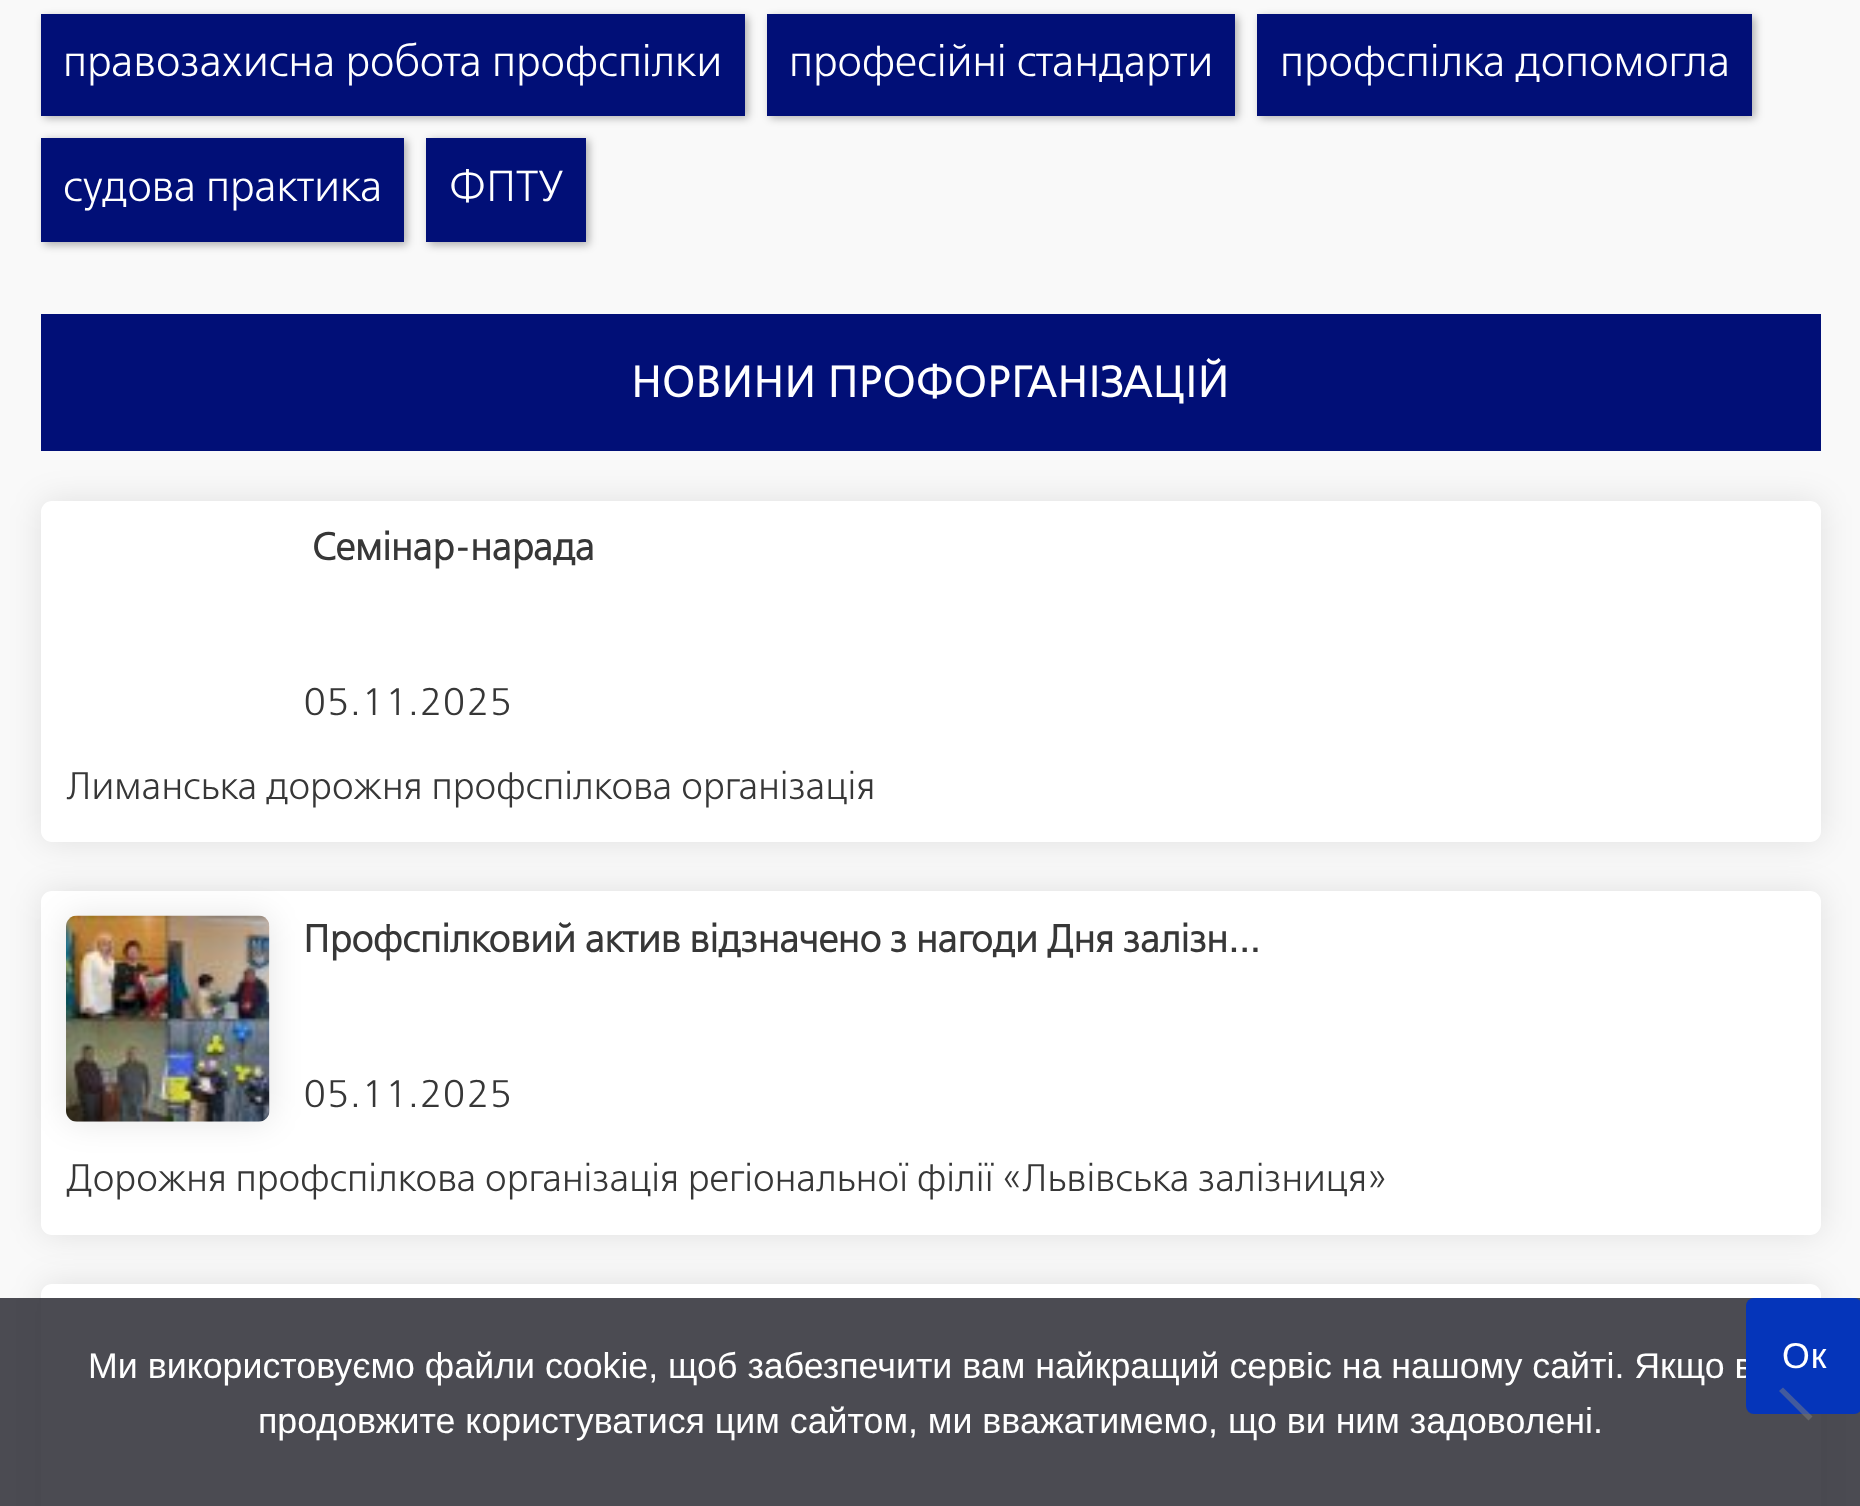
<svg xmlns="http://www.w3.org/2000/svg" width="1860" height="1506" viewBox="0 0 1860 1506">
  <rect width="100%" height="100%" fill="rgb(249,249,249)"/>
  <rect x="44" y="17" width="704" height="101" fill="rgba(0,0,0,0.3)" filter="blur(4px)"/>
  <rect x="41" y="14" width="704" height="102" fill="rgb(1,15,119)"/>
  <text x="63" y="76" font-family="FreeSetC" font-size="43.25" fill="rgb(255,255,255)">правозахисна робота профспілки</text>
  <rect x="770" y="17" width="468" height="101" fill="rgba(0,0,0,0.3)" filter="blur(4px)"/>
  <rect x="767" y="14" width="468" height="102" fill="rgb(1,15,119)"/>
  <text x="789" y="76" font-family="FreeSetC" font-size="43.25" fill="rgb(255,255,255)">професійні стандарти</text>
  <rect x="1260" y="17" width="495" height="101" fill="rgba(0,0,0,0.3)" filter="blur(4px)"/>
  <rect x="1257" y="14" width="495" height="102" fill="rgb(1,15,119)"/>
  <text x="1280" y="76" font-family="FreeSetC" font-size="43.25" fill="rgb(255,255,255)">профспілка допомогла</text>
  <rect x="44" y="140" width="363" height="105" fill="rgba(0,0,0,0.3)" filter="blur(4px)"/>
  <rect x="41" y="138" width="363" height="104" fill="rgb(1,15,119)"/>
  <text x="63" y="201" font-family="FreeSetC" font-size="43.25" fill="rgb(255,255,255)">судова практика</text>
  <rect x="429" y="140" width="160" height="105" fill="rgba(0,0,0,0.3)" filter="blur(4px)"/>
  <rect x="426" y="138" width="160" height="104" fill="rgb(1,15,119)"/>
  <text x="449" y="201" font-family="FreeSetC" font-size="43.25" fill="rgb(255,255,255)">ФПТУ</text>
  <rect x="41" y="314" width="1780" height="137" fill="rgb(1,15,119)"/>
  <text x="631" y="397" font-family="FreeSetC" font-size="43.25" font-weight="bold" letter-spacing="1" fill="rgb(255,255,255)">НОВИНИ ПРОФОРГАНІЗАЦІЙ</text>
  <rect x="41" y="501" width="1780" height="341" rx="11" fill="rgba(0,0,0,0.1)" filter="blur(16.5px)"/>
  <rect x="41" y="501" width="1780" height="341" rx="11" fill="rgb(255,255,255)"/>
  <text x="312" y="560" font-family="FreeSetC" font-size="38.35" font-weight="bold" fill="rgb(55,55,55)">Семінар-нарада</text>
  <g font-family="FreeSetC" font-size="38.35" fill="rgb(55,55,55)">
    <text x="303" y="715">05.11.2025</text>
    <text x="66" y="799">Лиманська дорожня профспілкова організація</text>
  </g>
  <rect x="41" y="891" width="1780" height="344" rx="11" fill="rgba(0,0,0,0.1)" filter="blur(16.5px)"/>
  <rect x="41" y="891" width="1780" height="344" rx="11" fill="rgb(255,255,255)"/>
  <rect x="66" y="916" width="204" height="206" rx="11" fill="rgba(0,0,0,0.1)" filter="blur(16.5px)"/>
  <rect x="66" y="916" width="204" height="206" rx="11" fill="rgb(255,255,255)"/>
  <image x="66" y="915" width="204" height="207" href="pic1.png"/>
  <text x="303" y="952" font-family="FreeSetC" font-size="38.35" font-weight="bold" fill="rgb(55,55,55)">Профспілковий актив відзначено з нагоди Дня залізн...</text>
  <g font-family="FreeSetC" font-size="38.35" fill="rgb(55,55,55)">
    <text x="303" y="1107">05.11.2025</text>
    <text x="66" y="1191" word-spacing="-0.25">Дорожня профспілкова організація регіональної філії «Львівська залізниця»</text>
  </g>
  <rect x="41" y="1284" width="1780" height="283" rx="11" fill="rgba(0,0,0,0.1)" filter="blur(16.5px)"/>
  <rect x="41" y="1284" width="1780" height="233" rx="11" fill="rgb(255,255,255)"/>
  <rect x="0" y="1298" width="1860" height="208" fill="rgba(50,50,58,0.88)"/>
  <g font-family="Liberation Sans" font-size="35.75" fill="rgb(255,255,255)">
    <text x="88" y="1378">Ми використовуємо файли cookie, щоб забезпечити вам найкращий сервіс на нашому сайті. Якщо в</text>
    <text x="258" y="1433">продовжите користуватися цим сайтом, ми вважатимемо, що ви ним задоволені.</text>
  </g>
  <rect x="1746" y="1298" width="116" height="116" rx="8" fill="rgb(5,53,186)"/>
  <text x="1782" y="1368" font-family="Liberation Sans" font-size="35.75" letter-spacing="1" fill="rgb(255,255,255)">Ок</text>
  <path d="M1779 1391L1783 1387.5L1812.5 1416.5L1808.5 1420.5Z" fill="rgba(128,128,128,0.5)"/>
</svg>
